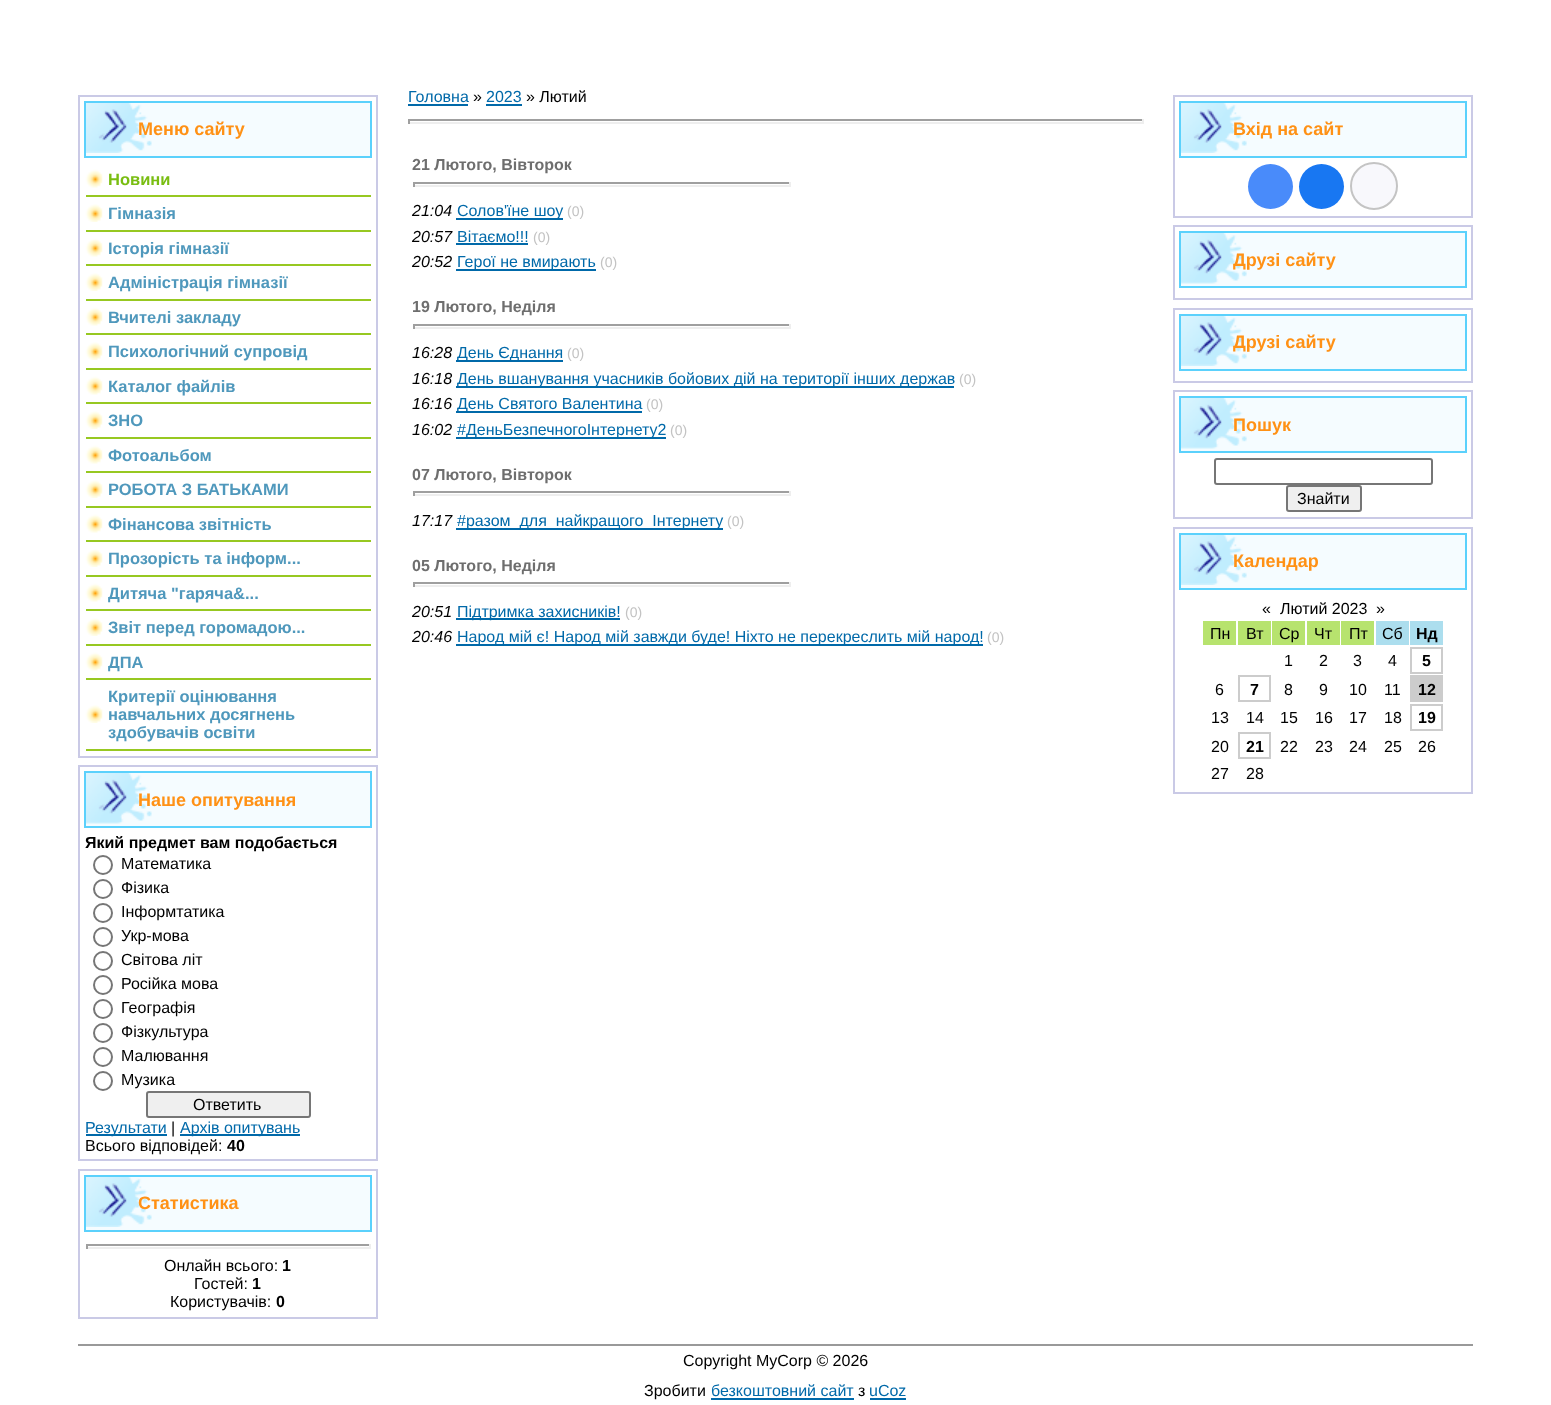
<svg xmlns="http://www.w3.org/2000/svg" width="1551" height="1405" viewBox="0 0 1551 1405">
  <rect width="100%" height="100%" fill="rgb(255,255,255)"/>
  <rect x="79" y="96" width="298" height="661" fill="none" stroke="rgb(202,202,230)" stroke-width="2"/>
  <rect x="86" y="103" width="284" height="53" fill="rgb(245,252,255)"/>
  <image x="86" y="103" width="66" height="50" href="pic1.png"/>
  <rect x="85" y="102" width="286" height="55" fill="none" stroke="rgb(91,209,252)" stroke-width="2"/>
  <text x="138" y="135" font-family="Liberation Sans" font-size="18" font-weight="bold" fill="rgb(255,145,21)">Меню сайту</text>
  <image x="85" y="169" width="18" height="19" href="pic2.png"/>
  <rect x="86" y="195" width="285" height="2" fill="rgb(151,200,33)"/>
  <text x="108" y="185" font-family="Liberation Sans" font-size="16.5" font-weight="bold" fill="rgb(121,189,17)">Новини</text>
  <image x="85" y="204" width="18" height="18" href="pic3.png"/>
  <rect x="86" y="230" width="285" height="2" fill="rgb(151,200,33)"/>
  <text x="108" y="219" font-family="Liberation Sans" font-size="16.5" font-weight="bold" fill="rgb(79,152,188)">Гімназія</text>
  <image x="85" y="238" width="18" height="19" href="pic2.png"/>
  <rect x="86" y="264" width="285" height="2" fill="rgb(151,200,33)"/>
  <text x="108" y="254" font-family="Liberation Sans" font-size="16.5" font-weight="bold" fill="rgb(79,152,188)">Історія гімназії</text>
  <image x="85" y="273" width="18" height="18" href="pic3.png"/>
  <rect x="86" y="299" width="285" height="2" fill="rgb(151,200,33)"/>
  <text x="108" y="288" font-family="Liberation Sans" font-size="16.5" font-weight="bold" fill="rgb(79,152,188)">Адміністрація гімназії</text>
  <image x="85" y="307" width="18" height="19" href="pic2.png"/>
  <rect x="86" y="333" width="285" height="2" fill="rgb(151,200,33)"/>
  <text x="108" y="323" font-family="Liberation Sans" font-size="16.5" font-weight="bold" fill="rgb(79,152,188)">Вчителі закладу</text>
  <image x="85" y="342" width="18" height="18" href="pic3.png"/>
  <rect x="86" y="368" width="285" height="2" fill="rgb(151,200,33)"/>
  <text x="108" y="357" font-family="Liberation Sans" font-size="16.5" font-weight="bold" fill="rgb(79,152,188)">Психологічний супровід</text>
  <image x="85" y="376" width="18" height="19" href="pic2.png"/>
  <rect x="86" y="402" width="285" height="2" fill="rgb(151,200,33)"/>
  <text x="108" y="392" font-family="Liberation Sans" font-size="16.5" font-weight="bold" fill="rgb(79,152,188)">Каталог файлів</text>
  <image x="85" y="411" width="18" height="18" href="pic3.png"/>
  <rect x="86" y="437" width="285" height="2" fill="rgb(151,200,33)"/>
  <text x="108" y="426" font-family="Liberation Sans" font-size="16.5" font-weight="bold" fill="rgb(79,152,188)">ЗНО</text>
  <image x="85" y="445" width="18" height="19" href="pic2.png"/>
  <rect x="86" y="471" width="285" height="2" fill="rgb(151,200,33)"/>
  <text x="108" y="461" font-family="Liberation Sans" font-size="16.5" font-weight="bold" fill="rgb(79,152,188)">Фотоальбом</text>
  <image x="85" y="480" width="18" height="18" href="pic3.png"/>
  <rect x="86" y="506" width="285" height="2" fill="rgb(151,200,33)"/>
  <text x="108" y="495" font-family="Liberation Sans" font-size="16.5" font-weight="bold" fill="rgb(79,152,188)">РОБОТА З БАТЬКАМИ</text>
  <image x="85" y="514" width="18" height="19" href="pic2.png"/>
  <rect x="86" y="540" width="285" height="2" fill="rgb(151,200,33)"/>
  <text x="108" y="530" font-family="Liberation Sans" font-size="16.5" font-weight="bold" fill="rgb(79,152,188)">Фінансова звітність</text>
  <image x="85" y="549" width="18" height="18" href="pic3.png"/>
  <rect x="86" y="575" width="285" height="2" fill="rgb(151,200,33)"/>
  <text x="108" y="564" font-family="Liberation Sans" font-size="16.5" font-weight="bold" fill="rgb(79,152,188)">Прозорість та інформ...</text>
  <image x="85" y="583" width="18" height="19" href="pic2.png"/>
  <rect x="86" y="609" width="285" height="2" fill="rgb(151,200,33)"/>
  <text x="108" y="599" font-family="Liberation Sans" font-size="16.5" font-weight="bold" fill="rgb(79,152,188)">Дитяча "гаряча&amp;...</text>
  <image x="85" y="618" width="18" height="18" href="pic3.png"/>
  <rect x="86" y="644" width="285" height="2" fill="rgb(151,200,33)"/>
  <text x="108" y="633" font-family="Liberation Sans" font-size="16.5" font-weight="bold" fill="rgb(79,152,188)">Звіт перед горомадою...</text>
  <image x="85" y="652" width="18" height="19" href="pic2.png"/>
  <rect x="86" y="678" width="285" height="2" fill="rgb(151,200,33)"/>
  <text x="108" y="668" font-family="Liberation Sans" font-size="16.5" font-weight="bold" fill="rgb(79,152,188)">ДПА</text>
  <image x="85" y="705" width="18" height="18" href="pic3.png"/>
  <rect x="86" y="749" width="285" height="2" fill="rgb(151,200,33)"/>
  <g font-family="Liberation Sans" font-size="16.5" font-weight="bold" fill="rgb(79,152,188)">
    <text>
      <tspan x="108" y="702">Критерії оцінювання</tspan>
      <tspan x="108" y="720">навчальних досягнень</tspan>
      <tspan x="108" y="738">здобувачів освіти</tspan>
    </text>
  </g>
  <rect x="79" y="766" width="298" height="394" fill="none" stroke="rgb(202,202,230)" stroke-width="2"/>
  <rect x="86" y="773" width="284" height="53" fill="rgb(245,252,255)"/>
  <image x="86" y="773" width="66" height="51" href="pic4.png"/>
  <rect x="85" y="772" width="286" height="55" fill="none" stroke="rgb(91,209,252)" stroke-width="2"/>
  <text x="138" y="806" font-family="Liberation Sans" font-size="18" font-weight="bold" fill="rgb(255,145,21)">Наше опитування</text>
  <text x="85" y="848" font-family="Liberation Sans" font-size="16" font-weight="bold" fill="rgb(0,0,0)">Який предмет вам подобається</text>
  <circle cx="103" cy="865" r="9" fill="none" stroke="rgb(118,118,118)" stroke-width="2"/>
  <text x="121" y="869" font-family="Liberation Sans" font-size="16" fill="rgb(0,0,0)">Математика</text>
  <circle cx="103" cy="889" r="9" fill="none" stroke="rgb(118,118,118)" stroke-width="2"/>
  <text x="121" y="893" font-family="Liberation Sans" font-size="16" fill="rgb(0,0,0)">Фізика</text>
  <circle cx="103" cy="913" r="9" fill="none" stroke="rgb(118,118,118)" stroke-width="2"/>
  <text x="121" y="917" font-family="Liberation Sans" font-size="16" fill="rgb(0,0,0)">Інформтатика</text>
  <circle cx="103" cy="937" r="9" fill="none" stroke="rgb(118,118,118)" stroke-width="2"/>
  <text x="121" y="941" font-family="Liberation Sans" font-size="16" fill="rgb(0,0,0)">Укр-мова</text>
  <circle cx="103" cy="961" r="9" fill="none" stroke="rgb(118,118,118)" stroke-width="2"/>
  <text x="121" y="965" font-family="Liberation Sans" font-size="16" fill="rgb(0,0,0)">Світова літ</text>
  <circle cx="103" cy="985" r="9" fill="none" stroke="rgb(118,118,118)" stroke-width="2"/>
  <text x="121" y="989" font-family="Liberation Sans" font-size="16" fill="rgb(0,0,0)">Російка мова</text>
  <circle cx="103" cy="1009" r="9" fill="none" stroke="rgb(118,118,118)" stroke-width="2"/>
  <text x="121" y="1013" font-family="Liberation Sans" font-size="16" fill="rgb(0,0,0)">Географія</text>
  <circle cx="103" cy="1033" r="9" fill="none" stroke="rgb(118,118,118)" stroke-width="2"/>
  <text x="121" y="1037" font-family="Liberation Sans" font-size="16" fill="rgb(0,0,0)">Фізкультура</text>
  <circle cx="103" cy="1057" r="9" fill="none" stroke="rgb(118,118,118)" stroke-width="2"/>
  <text x="121" y="1061" font-family="Liberation Sans" font-size="16" fill="rgb(0,0,0)">Малювання</text>
  <circle cx="103" cy="1081" r="9" fill="none" stroke="rgb(118,118,118)" stroke-width="2"/>
  <text x="121" y="1085" font-family="Liberation Sans" font-size="16" fill="rgb(0,0,0)">Музика</text>
  <rect x="147" y="1092" width="163" height="25" rx="2" fill="rgb(239,239,239)" stroke="rgb(118,118,118)" stroke-width="2"/>
  <text x="193" y="1110" font-family="Liberation Sans" font-size="16" fill="rgb(0,0,0)">Ответить</text>
  <rect x="86" y="1134" width="81" height="2" fill="rgb(0,105,169)"/>
  <text x="85" y="1133" font-family="Liberation Sans" font-size="16" fill="rgb(0,105,169)">Результати</text>
  <text x="171" y="1133" font-family="Liberation Sans" font-size="16" fill="rgb(0,0,0)">|</text>
  <rect x="180" y="1134" width="120" height="2" fill="rgb(0,105,169)"/>
  <text x="180" y="1133" font-family="Liberation Sans" font-size="16" fill="rgb(0,105,169)">Архів опитувань</text>
  <text x="85" y="1151" font-family="Liberation Sans" font-size="16" fill="rgb(0,0,0)">Всього відповідей:</text>
  <text x="227" y="1151" font-family="Liberation Sans" font-size="16" font-weight="bold" fill="rgb(0,0,0)">40</text>
  <rect x="79" y="1170" width="298" height="148" fill="none" stroke="rgb(202,202,230)" stroke-width="2"/>
  <rect x="86" y="1177" width="284" height="53" fill="rgb(245,252,255)"/>
  <image x="86" y="1177" width="66" height="50" href="pic1.png"/>
  <rect x="85" y="1176" width="286" height="55" fill="none" stroke="rgb(91,209,252)" stroke-width="2"/>
  <text x="138" y="1209" font-family="Liberation Sans" font-size="18" font-weight="bold" fill="rgb(255,145,21)">Статистика</text>
  <rect x="86" y="1244" width="285" height="2" fill="rgb(159,159,159)"/>
  <rect x="369" y="1244" width="2" height="5" fill="rgb(238,238,238)"/>
  <rect x="86" y="1247" width="285" height="2" fill="rgb(238,238,238)"/>
  <rect x="86" y="1244" width="2" height="5" fill="rgb(159,159,159)"/>
  <text x="164" y="1271" font-family="Liberation Sans" font-size="16" fill="rgb(0,0,0)">Онлайн всього:</text>
  <text x="282" y="1271" font-family="Liberation Sans" font-size="16" font-weight="bold" fill="rgb(0,0,0)">1</text>
  <text x="194" y="1289" font-family="Liberation Sans" font-size="16" fill="rgb(0,0,0)">Гостей:</text>
  <text x="252" y="1289" font-family="Liberation Sans" font-size="16" font-weight="bold" fill="rgb(0,0,0)">1</text>
  <text x="170" y="1307" font-family="Liberation Sans" font-size="16" fill="rgb(0,0,0)">Користувачів:</text>
  <text x="276" y="1307" font-family="Liberation Sans" font-size="16" font-weight="bold" fill="rgb(0,0,0)">0</text>
  <text x="408" y="102" font-family="Liberation Sans" font-size="16" fill="rgb(0,105,169)">Головна</text>
  <rect x="408" y="104" width="60" height="2" fill="rgb(0,105,169)"/>
  <text x="473" y="102" font-family="Liberation Sans" font-size="16" fill="rgb(0,0,0)">»</text>
  <text x="486" y="102" font-family="Liberation Sans" font-size="16" fill="rgb(0,105,169)">2023</text>
  <rect x="486" y="104" width="36" height="2" fill="rgb(0,105,169)"/>
  <text x="526" y="102" font-family="Liberation Sans" font-size="16" fill="rgb(0,0,0)">» Лютий</text>
  <rect x="408" y="119" width="735" height="2" fill="rgb(159,159,159)"/>
  <rect x="1142" y="119" width="2" height="5" fill="rgb(238,238,238)"/>
  <rect x="408" y="122" width="735" height="2" fill="rgb(238,238,238)"/>
  <rect x="408" y="119" width="2" height="5" fill="rgb(159,159,159)"/>
  <text x="412" y="170" font-family="Liberation Sans" font-size="16" font-weight="bold" fill="rgb(110,110,110)">21 Лютого, Вівторок</text>
  <rect x="413" y="182" width="378" height="2" fill="rgb(159,159,159)"/>
  <rect x="789" y="182" width="2" height="5" fill="rgb(238,238,238)"/>
  <rect x="413" y="185" width="378" height="2" fill="rgb(238,238,238)"/>
  <rect x="413" y="182" width="2" height="5" fill="rgb(159,159,159)"/>
  <text x="412" y="216" font-family="Liberation Sans" font-size="16" font-style="italic" fill="rgb(0,0,0)">21:04</text>
  <rect x="456" y="218" width="107" height="2" fill="rgb(0,105,169)"/>
  <text x="457" y="216" font-family="Liberation Sans" font-size="16" fill="rgb(0,105,169)">Солов'їне шоу</text>
  <text x="567" y="216" font-family="Liberation Sans" font-size="14" fill="rgb(195,195,195)">(0)</text>
  <text x="412" y="242" font-family="Liberation Sans" font-size="16" font-style="italic" fill="rgb(0,0,0)">20:57</text>
  <text x="457" y="242" font-family="Liberation Sans" font-size="16" fill="rgb(0,105,169)">Вітаємо!!!</text>
  <rect x="456" y="243" width="72" height="2" fill="rgb(0,105,169)"/>
  <text x="533" y="242" font-family="Liberation Sans" font-size="14" fill="rgb(195,195,195)">(0)</text>
  <text x="412" y="267" font-family="Liberation Sans" font-size="16" font-style="italic" fill="rgb(0,0,0)">20:52</text>
  <rect x="456" y="269" width="140" height="2" fill="rgb(0,105,169)"/>
  <text x="457" y="267" font-family="Liberation Sans" font-size="16" fill="rgb(0,105,169)">Герої не вмирають</text>
  <text x="600" y="267" font-family="Liberation Sans" font-size="14" fill="rgb(195,195,195)">(0)</text>
  <text x="412" y="312" font-family="Liberation Sans" font-size="16" font-weight="bold" fill="rgb(110,110,110)">19 Лютого, Неділя</text>
  <rect x="413" y="324" width="378" height="2" fill="rgb(159,159,159)"/>
  <rect x="789" y="324" width="2" height="5" fill="rgb(238,238,238)"/>
  <rect x="413" y="327" width="378" height="2" fill="rgb(238,238,238)"/>
  <rect x="413" y="324" width="2" height="5" fill="rgb(159,159,159)"/>
  <text x="412" y="358" font-family="Liberation Sans" font-size="16" font-style="italic" fill="rgb(0,0,0)">16:28</text>
  <rect x="456" y="360" width="107" height="2" fill="rgb(0,105,169)"/>
  <text x="457" y="358" font-family="Liberation Sans" font-size="16" fill="rgb(0,105,169)">День Єднання</text>
  <text x="567" y="358" font-family="Liberation Sans" font-size="14" fill="rgb(195,195,195)">(0)</text>
  <text x="412" y="384" font-family="Liberation Sans" font-size="16" font-style="italic" fill="rgb(0,0,0)">16:18</text>
  <rect x="456" y="386" width="498" height="2" fill="rgb(0,105,169)"/>
  <text x="457" y="384" font-family="Liberation Sans" font-size="16" fill="rgb(0,105,169)">День вшанування учасників бойових дій на території інших держав</text>
  <text x="959" y="384" font-family="Liberation Sans" font-size="14" fill="rgb(195,195,195)">(0)</text>
  <text x="412" y="409" font-family="Liberation Sans" font-size="16" font-style="italic" fill="rgb(0,0,0)">16:16</text>
  <rect x="456" y="411" width="186" height="2" fill="rgb(0,105,169)"/>
  <text x="457" y="409" font-family="Liberation Sans" font-size="16" fill="rgb(0,105,169)">День Святого Валентина</text>
  <text x="646" y="409" font-family="Liberation Sans" font-size="14" fill="rgb(195,195,195)">(0)</text>
  <text x="412" y="435" font-family="Liberation Sans" font-size="16" font-style="italic" fill="rgb(0,0,0)">16:02</text>
  <rect x="456" y="437" width="210" height="2" fill="rgb(0,105,169)"/>
  <text x="457" y="435" font-family="Liberation Sans" font-size="16" fill="rgb(0,105,169)">#ДеньБезпечногоІнтернету2</text>
  <text x="670" y="435" font-family="Liberation Sans" font-size="14" fill="rgb(195,195,195)">(0)</text>
  <text x="412" y="480" font-family="Liberation Sans" font-size="16" font-weight="bold" fill="rgb(110,110,110)">07 Лютого, Вівторок</text>
  <rect x="413" y="491" width="378" height="2" fill="rgb(159,159,159)"/>
  <rect x="789" y="491" width="2" height="5" fill="rgb(238,238,238)"/>
  <rect x="413" y="494" width="378" height="2" fill="rgb(238,238,238)"/>
  <rect x="413" y="491" width="2" height="5" fill="rgb(159,159,159)"/>
  <text x="412" y="526" font-family="Liberation Sans" font-size="16" font-style="italic" fill="rgb(0,0,0)">17:17</text>
  <rect x="456" y="528" width="267" height="2" fill="rgb(0,105,169)"/>
  <text x="457" y="526" font-family="Liberation Sans" font-size="16" fill="rgb(0,105,169)">#разом_для_найкращого_Інтернету</text>
  <text x="727" y="526" font-family="Liberation Sans" font-size="14" fill="rgb(195,195,195)">(0)</text>
  <text x="412" y="571" font-family="Liberation Sans" font-size="16" font-weight="bold" fill="rgb(110,110,110)">05 Лютого, Неділя</text>
  <rect x="413" y="582" width="378" height="2" fill="rgb(159,159,159)"/>
  <rect x="789" y="582" width="2" height="5" fill="rgb(238,238,238)"/>
  <rect x="413" y="585" width="378" height="2" fill="rgb(238,238,238)"/>
  <rect x="413" y="582" width="2" height="5" fill="rgb(159,159,159)"/>
  <text x="412" y="617" font-family="Liberation Sans" font-size="16" font-style="italic" fill="rgb(0,0,0)">20:51</text>
  <rect x="456" y="618" width="164" height="2" fill="rgb(0,105,169)"/>
  <text x="457" y="617" font-family="Liberation Sans" font-size="16" fill="rgb(0,105,169)">Підтримка захисників!</text>
  <text x="625" y="617" font-family="Liberation Sans" font-size="14" fill="rgb(195,195,195)">(0)</text>
  <text x="412" y="642" font-family="Liberation Sans" font-size="16" font-style="italic" fill="rgb(0,0,0)">20:46</text>
  <rect x="456" y="644" width="527" height="2" fill="rgb(0,105,169)"/>
  <text x="457" y="642" font-family="Liberation Sans" font-size="16" fill="rgb(0,105,169)">Народ мій є! Народ мій завжди буде! Ніхто не перекреслить мій народ!</text>
  <text x="987" y="642" font-family="Liberation Sans" font-size="14" fill="rgb(195,195,195)">(0)</text>
  <rect x="1174" y="96" width="298" height="121" fill="none" stroke="rgb(202,202,230)" stroke-width="2"/>
  <rect x="1181" y="103" width="284" height="53" fill="rgb(245,252,255)"/>
  <image x="1181" y="103" width="66" height="50" href="pic5.png"/>
  <rect x="1180" y="102" width="286" height="55" fill="none" stroke="rgb(91,209,252)" stroke-width="2"/>
  <text x="1233" y="135" font-family="Liberation Sans" font-size="18" font-weight="bold" fill="rgb(255,145,21)">Вхід на сайт</text>
  <circle cx="1270.5" cy="186.5" r="22.5" fill="rgb(73,139,250)"/>
  <circle cx="1321.5" cy="186.5" r="22.5" fill="rgb(24,119,242)"/>
  <circle cx="1374" cy="186" r="23" fill="rgb(248,248,252)" stroke="rgb(196,196,196)" stroke-width="2"/>
  <rect x="1174" y="226" width="298" height="73" fill="none" stroke="rgb(202,202,230)" stroke-width="2"/>
  <rect x="1181" y="233" width="284" height="53" fill="rgb(245,252,255)"/>
  <image x="1181" y="233" width="66" height="51" href="pic6.png"/>
  <rect x="1180" y="232" width="286" height="55" fill="none" stroke="rgb(91,209,252)" stroke-width="2"/>
  <text x="1233" y="266" font-family="Liberation Sans" font-size="18" font-weight="bold" fill="rgb(255,145,21)">Друзі сайту</text>
  <rect x="1174" y="309" width="298" height="73" fill="none" stroke="rgb(202,202,230)" stroke-width="2"/>
  <rect x="1181" y="316" width="284" height="53" fill="rgb(245,252,255)"/>
  <image x="1181" y="316" width="66" height="50" href="pic5.png"/>
  <rect x="1180" y="315" width="286" height="55" fill="none" stroke="rgb(91,209,252)" stroke-width="2"/>
  <text x="1233" y="348" font-family="Liberation Sans" font-size="18" font-weight="bold" fill="rgb(255,145,21)">Друзі сайту</text>
  <rect x="1174" y="391" width="298" height="127" fill="none" stroke="rgb(202,202,230)" stroke-width="2"/>
  <rect x="1181" y="398" width="284" height="53" fill="rgb(245,252,255)"/>
  <image x="1181" y="398" width="66" height="51" href="pic6.png"/>
  <rect x="1180" y="397" width="286" height="55" fill="none" stroke="rgb(91,209,252)" stroke-width="2"/>
  <text x="1233" y="431" font-family="Liberation Sans" font-size="18" font-weight="bold" fill="rgb(255,145,21)">Пошук</text>
  <rect x="1215" y="459" width="217" height="25" rx="2" fill="none" stroke="rgb(118,118,118)" stroke-width="2"/>
  <rect x="1287" y="486" width="74" height="25" rx="2" fill="rgb(239,239,239)" stroke="rgb(118,118,118)" stroke-width="2"/>
  <text x="1297" y="504" font-family="Liberation Sans" font-size="16" fill="rgb(0,0,0)">Знайти</text>
  <rect x="1174" y="528" width="298" height="265" fill="none" stroke="rgb(202,202,230)" stroke-width="2"/>
  <rect x="1181" y="535" width="284" height="53" fill="rgb(245,252,255)"/>
  <image x="1181" y="535" width="66" height="50" href="pic5.png"/>
  <rect x="1180" y="534" width="286" height="55" fill="none" stroke="rgb(91,209,252)" stroke-width="2"/>
  <text x="1233" y="567" font-family="Liberation Sans" font-size="18" font-weight="bold" fill="rgb(255,145,21)">Календар</text>
  <g font-family="Liberation Sans" font-size="16" fill="rgb(0,0,0)">
    <text x="1262" y="614">«</text>
    <text x="1280" y="614">Лютий 2023</text>
    <text x="1376" y="614">»</text>
  </g>
  <rect x="1203" y="621" width="33" height="24" fill="rgb(183,227,110)"/>
  <text x="1210" y="639" font-family="Liberation Sans" font-size="16" fill="rgb(0,0,0)">Пн</text>
  <rect x="1238" y="621" width="33" height="24" fill="rgb(183,227,110)"/>
  <text x="1246" y="639" font-family="Liberation Sans" font-size="16" fill="rgb(0,0,0)">Вт</text>
  <rect x="1272" y="621" width="33" height="24" fill="rgb(183,227,110)"/>
  <text x="1279" y="639" font-family="Liberation Sans" font-size="16" fill="rgb(0,0,0)">Ср</text>
  <rect x="1307" y="621" width="33" height="24" fill="rgb(183,227,110)"/>
  <text x="1314" y="639" font-family="Liberation Sans" font-size="16" fill="rgb(0,0,0)">Чт</text>
  <rect x="1341" y="621" width="33" height="24" fill="rgb(183,227,110)"/>
  <text x="1349" y="639" font-family="Liberation Sans" font-size="16" fill="rgb(0,0,0)">Пт</text>
  <rect x="1376" y="621" width="33" height="24" fill="rgb(172,222,238)"/>
  <text x="1382" y="639" font-family="Liberation Sans" font-size="16" fill="rgb(0,0,0)">Сб</text>
  <rect x="1410" y="621" width="33" height="24" fill="rgb(172,222,238)"/>
  <text x="1416" y="639" font-family="Liberation Sans" font-size="16" font-weight="bold" fill="rgb(0,0,0)">Нд</text>
  <g font-family="Liberation Sans" font-size="16" fill="rgb(0,0,0)">
    <text x="1284" y="666">1</text>
    <text x="1319" y="666">2</text>
    <text x="1353" y="666">3</text>
    <text x="1388" y="666">4</text>
  </g>
  <rect x="1411" y="648" width="31" height="25" fill="none" stroke="rgb(204,204,204)" stroke-width="2"/>
  <text x="1422" y="666" font-family="Liberation Sans" font-size="16" font-weight="bold" fill="rgb(0,0,0)">5</text>
  <text x="1215" y="695" font-family="Liberation Sans" font-size="16" fill="rgb(0,0,0)">6</text>
  <rect x="1239" y="676" width="31" height="25" fill="none" stroke="rgb(204,204,204)" stroke-width="2"/>
  <text x="1250" y="695" font-family="Liberation Sans" font-size="16" font-weight="bold" fill="rgb(0,0,0)">7</text>
  <g font-family="Liberation Sans" font-size="16" fill="rgb(0,0,0)">
    <text x="1284" y="695">8</text>
    <text x="1319" y="695">9</text>
    <text x="1349" y="695">10</text>
    <text x="1384" y="695">11</text>
  </g>
  <rect x="1410" y="675" width="33" height="27" fill="rgb(204,204,204)"/>
  <text x="1418" y="695" font-family="Liberation Sans" font-size="16" font-weight="bold" fill="rgb(0,0,0)">12</text>
  <g font-family="Liberation Sans" font-size="16" fill="rgb(0,0,0)">
    <text x="1211" y="723">13</text>
    <text x="1246" y="723">14</text>
    <text x="1280" y="723">15</text>
    <text x="1315" y="723">16</text>
    <text x="1349" y="723">17</text>
    <text x="1384" y="723">18</text>
  </g>
  <rect x="1411" y="705" width="31" height="25" fill="none" stroke="rgb(204,204,204)" stroke-width="2"/>
  <text x="1418" y="723" font-family="Liberation Sans" font-size="16" font-weight="bold" fill="rgb(0,0,0)">19</text>
  <text x="1211" y="752" font-family="Liberation Sans" font-size="16" fill="rgb(0,0,0)">20</text>
  <rect x="1239" y="733" width="31" height="25" fill="none" stroke="rgb(204,204,204)" stroke-width="2"/>
  <text x="1246" y="752" font-family="Liberation Sans" font-size="16" font-weight="bold" fill="rgb(0,0,0)">21</text>
  <g font-family="Liberation Sans" font-size="16" fill="rgb(0,0,0)">
    <text x="1280" y="752">22</text>
    <text x="1315" y="752">23</text>
    <text x="1349" y="752">24</text>
    <text x="1384" y="752">25</text>
    <text x="1418" y="752">26</text>
    <text x="1211" y="779">27</text>
    <text x="1246" y="779">28</text>
  </g>
  <rect x="78" y="1344" width="1395" height="2" fill="rgb(153,153,153)"/>
  <g font-family="Liberation Sans" font-size="16" fill="rgb(0,0,0)">
    <text x="683" y="1366">Copyright MyCorp © 2026</text>
    <text x="644" y="1396">Зробити</text>
  </g>
  <text x="711" y="1396" font-family="Liberation Sans" font-size="16" fill="rgb(0,105,169)">безкоштовний сайт</text>
  <rect x="711" y="1398" width="143" height="2" fill="rgb(0,105,169)"/>
  <text x="858" y="1396" font-family="Liberation Sans" font-size="16" fill="rgb(0,0,0)">з</text>
  <text x="869" y="1396" font-family="Liberation Sans" font-size="16" fill="rgb(0,105,169)">uCoz</text>
  <rect x="870" y="1398" width="36" height="2" fill="rgb(0,105,169)"/>
</svg>
